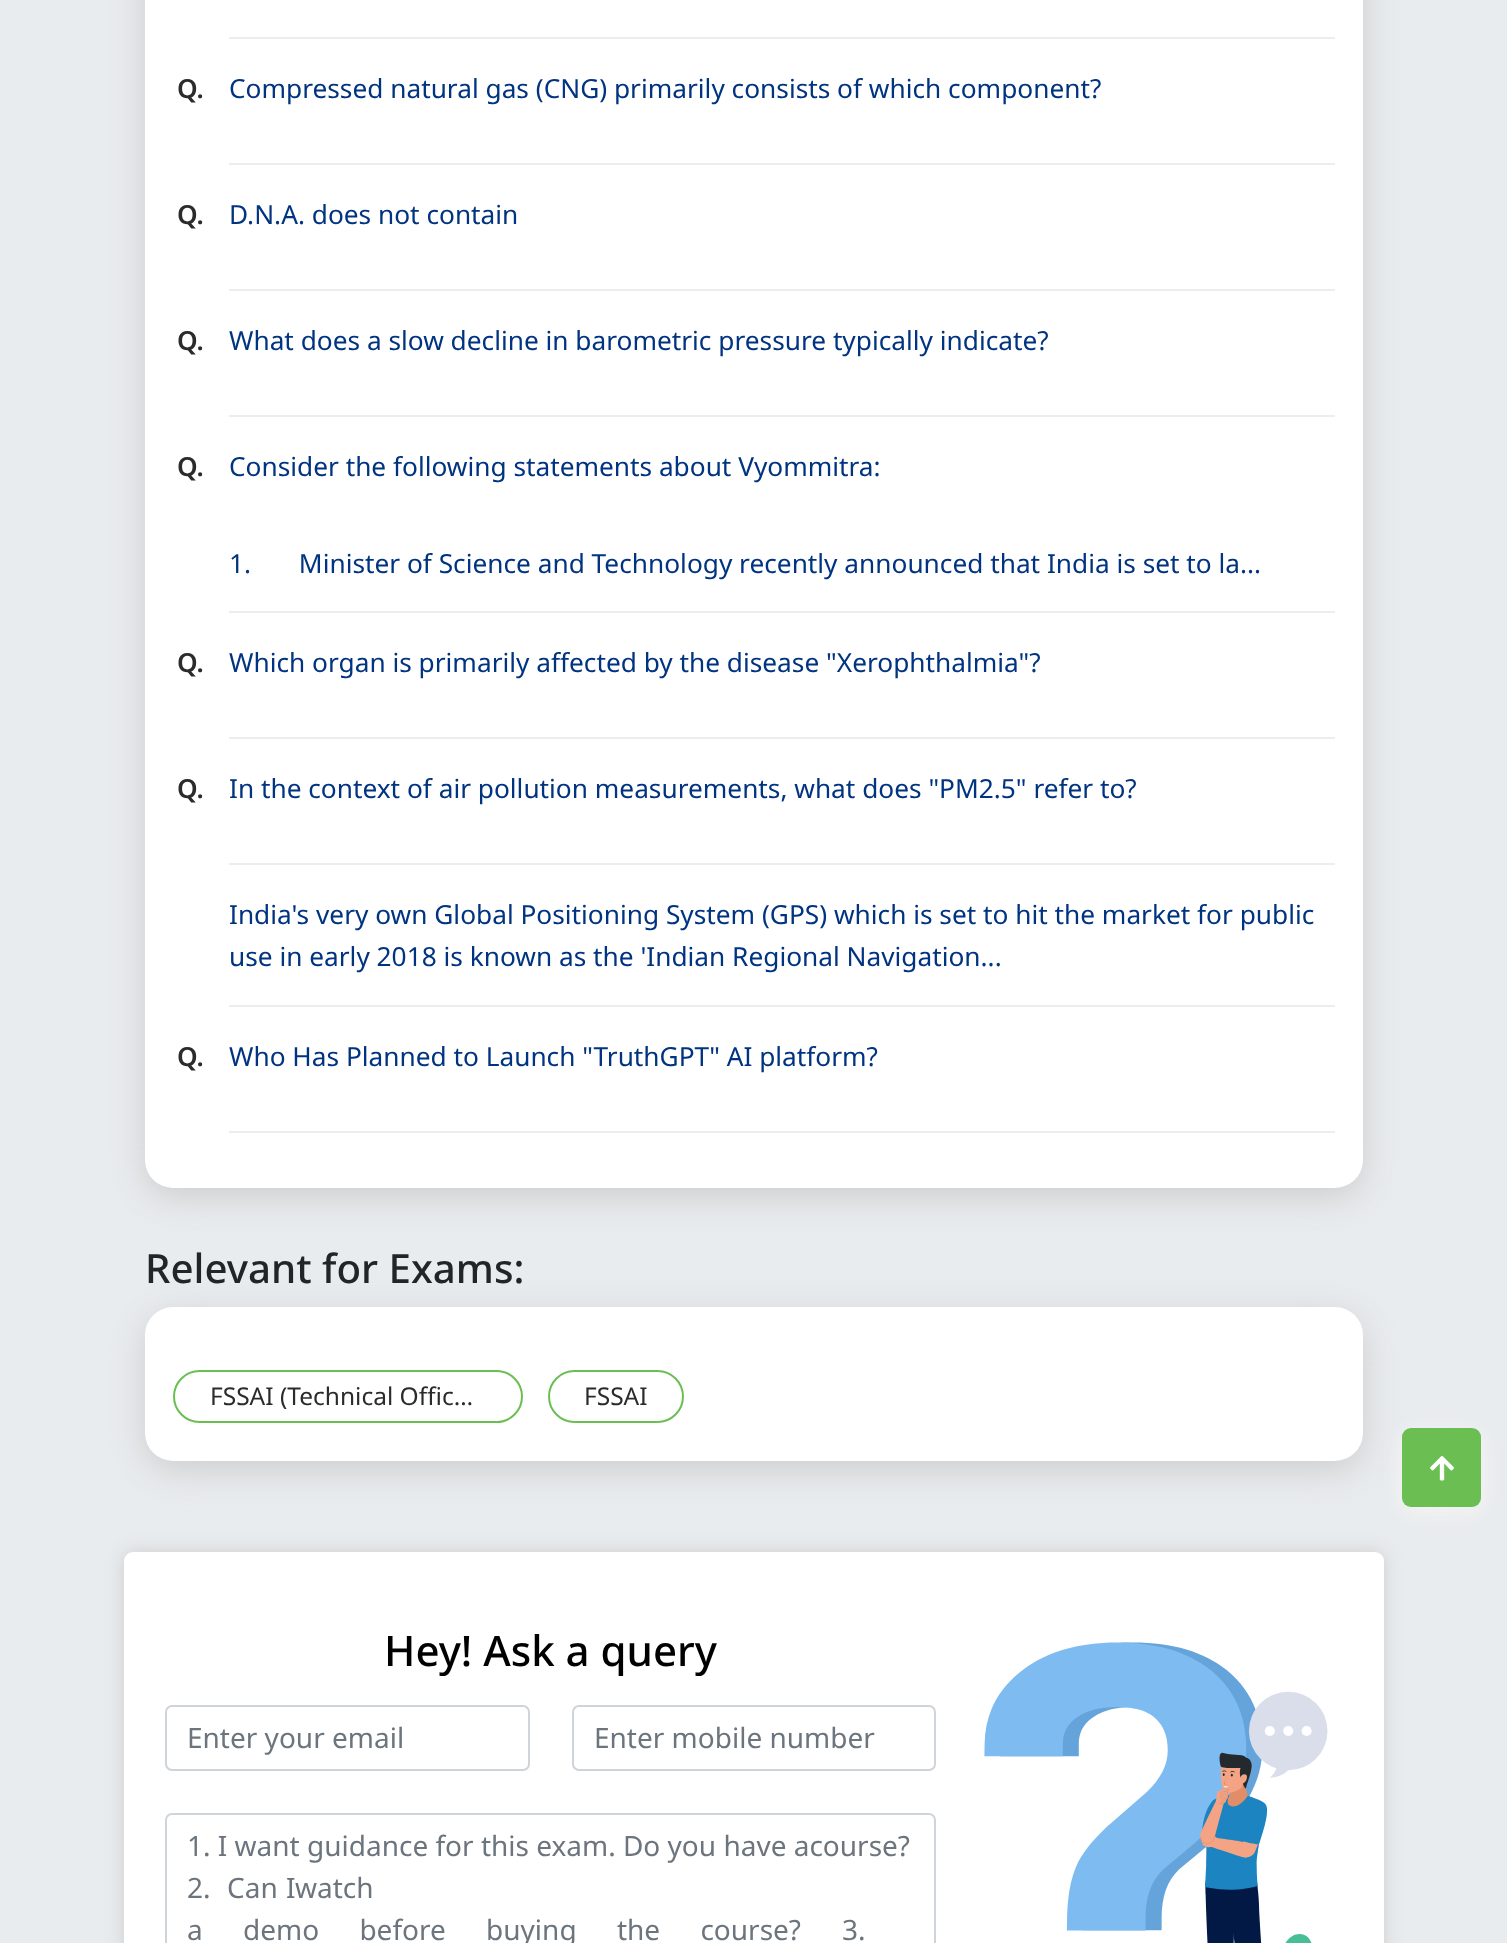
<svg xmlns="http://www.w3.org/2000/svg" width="1507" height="1943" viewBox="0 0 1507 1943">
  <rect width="100%" height="100%" fill="rgb(233,236,239)"/>
  <rect x="145" y="-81" width="1218" height="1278" rx="28" fill="rgb(204,204,204)" filter="blur(17.5px)"/>
  <rect x="145" y="-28" width="1218" height="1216" rx="28" fill="rgb(255,255,255)"/>
  <rect x="229" y="37" width="1106" height="2" fill="rgb(237,237,237)"/>
  <rect x="229" y="163" width="1106" height="2" fill="rgb(237,237,237)"/>
  <text x="177" y="98" font-family="Noto Sans" font-size="26.25" font-weight="600" fill="rgb(43,43,43)">Q.</text>
  <text x="229" y="98" font-family="Noto Sans" font-size="26.25" fill="rgb(0,51,128)">Compressed natural gas (CNG) primarily consists of which component?</text>
  <rect x="229" y="289" width="1106" height="2" fill="rgb(237,237,237)"/>
  <text x="177" y="224" font-family="Noto Sans" font-size="26.25" font-weight="600" fill="rgb(43,43,43)">Q.</text>
  <text x="229" y="224" font-family="Noto Sans" font-size="26.25" fill="rgb(0,51,128)">D.N.A. does not contain</text>
  <rect x="229" y="415" width="1106" height="2" fill="rgb(237,237,237)"/>
  <text x="177" y="350" font-family="Noto Sans" font-size="26.25" font-weight="600" fill="rgb(43,43,43)">Q.</text>
  <text x="229" y="350" font-family="Noto Sans" font-size="26.25" fill="rgb(0,51,128)">What does a slow decline in barometric pressure typically indicate?</text>
  <rect x="229" y="611" width="1106" height="2" fill="rgb(237,237,237)"/>
  <text x="177" y="476" font-family="Noto Sans" font-size="26.25" font-weight="600" fill="rgb(43,43,43)">Q.</text>
  <g font-family="Noto Sans" font-size="26.25" fill="rgb(0,51,128)">
    <text x="229" y="476">Consider the following statements about Vyommitra:</text>
    <text x="229" y="573" xml:space="preserve">1.       Minister of Science and Technology recently announced that India is set to la...</text>
  </g>
  <rect x="229" y="737" width="1106" height="2" fill="rgb(237,237,237)"/>
  <text x="177" y="672" font-family="Noto Sans" font-size="26.25" font-weight="600" fill="rgb(43,43,43)">Q.</text>
  <text x="229" y="672" font-family="Noto Sans" font-size="26.25" fill="rgb(0,51,128)">Which organ is primarily affected by the disease "Xerophthalmia"?</text>
  <rect x="229" y="863" width="1106" height="2" fill="rgb(237,237,237)"/>
  <text x="177" y="798" font-family="Noto Sans" font-size="26.25" font-weight="600" fill="rgb(43,43,43)">Q.</text>
  <text x="229" y="798" font-family="Noto Sans" font-size="26.25" fill="rgb(0,51,128)">In the context of air pollution measurements, what does "PM2.5" refer to?</text>
  <rect x="229" y="1005" width="1106" height="2" fill="rgb(237,237,237)"/>
  <g font-family="Noto Sans" font-size="26.25" fill="rgb(0,51,128)">
    <text>
      <tspan x="229" y="924">India's very own Global Positioning System (GPS) which is set to hit the market for public</tspan>
      <tspan x="229" y="966">use in early 2018 is known as the 'Indian Regional Navigation...</tspan>
    </text>
  </g>
  <rect x="229" y="1131" width="1106" height="2" fill="rgb(237,237,237)"/>
  <text x="177" y="1066" font-family="Noto Sans" font-size="26.25" font-weight="600" fill="rgb(43,43,43)">Q.</text>
  <text x="229" y="1066" font-family="Noto Sans" font-size="26.25" fill="rgb(0,51,128)">Who Has Planned to Launch "TruthGPT" AI platform?</text>
  <rect x="145" y="1316" width="1218" height="154" rx="28" fill="rgb(204,204,204)" filter="blur(17.5px)"/>
  <text x="145" y="1283" font-family="Noto Sans" font-size="40.25" font-weight="500" fill="rgb(33,37,41)">Relevant for Exams:</text>
  <rect x="145" y="1307" width="1218" height="154" rx="28" fill="rgb(255,255,255)"/>
  <rect x="174" y="1371" width="348" height="51" rx="25.5" fill="none" stroke="rgb(106,190,82)" stroke-width="2"/>
  <text x="210" y="1405" font-family="Noto Sans" font-size="24.5" fill="rgb(43,43,43)">FSSAI (Technical Offic…</text>
  <rect x="549" y="1371" width="134" height="51" rx="25.5" fill="none" stroke="rgb(106,190,82)" stroke-width="2"/>
  <text x="584" y="1405" font-family="Noto Sans" font-size="24.5" fill="rgb(43,43,43)">FSSAI</text>
  <rect x="124" y="1552" width="1260" height="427" rx="9" fill="rgb(204,204,204)" filter="blur(9px)"/>
  <rect x="126.5" y="1554.5" width="1255" height="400" rx="6.5" fill="rgb(255,255,255)" stroke="rgb(255,255,255)" stroke-width="5"/>
  <text x="384" y="1666" font-family="Noto Sans" font-size="42" font-weight="500" fill="rgb(0,0,0)">Hey! Ask a query</text>
  <rect x="166" y="1706" width="363" height="64" rx="6" fill="none" stroke="rgb(206,212,218)" stroke-width="2"/>
  <text x="187" y="1748" font-family="Noto Sans" font-size="28" fill="rgb(108,117,125)">Enter your email</text>
  <rect x="573" y="1706" width="362" height="64" rx="6" fill="none" stroke="rgb(206,212,218)" stroke-width="2"/>
  <text x="594" y="1748" font-family="Noto Sans" font-size="28" fill="rgb(108,117,125)">Enter mobile number</text>
  <rect x="166" y="1814" width="769" height="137" rx="6" fill="none" stroke="rgb(206,212,218)" stroke-width="2"/>
  <g font-family="Noto Sans" font-size="28" fill="rgb(108,117,125)">
    <text xml:space="preserve"><tspan x="187" y="1856">1. I want guidance for this exam. Do you have acourse?</tspan><tspan x="187" y="1898" word-spacing="1">2.  Can I</tspan></text>
    <text x="295" y="1898">watch</text>
    <text x="187" y="1940" word-spacing="33">a demo before buying the course?</text>
    <text x="842" y="1940">3.</text>
  </g>
  <image x="984" y="1642" width="344" height="301" href="pic1.png"/>
  <rect x="1402" y="1433" width="79" height="79" rx="9" fill="rgb(244,244,244)" filter="blur(10.5px)"/>
  <rect x="1402" y="1428" width="79" height="79" rx="9" fill="rgb(106,190,82)"/>
  <image x="1430" y="1456" width="24" height="25" href="pic2.png"/>
</svg>
